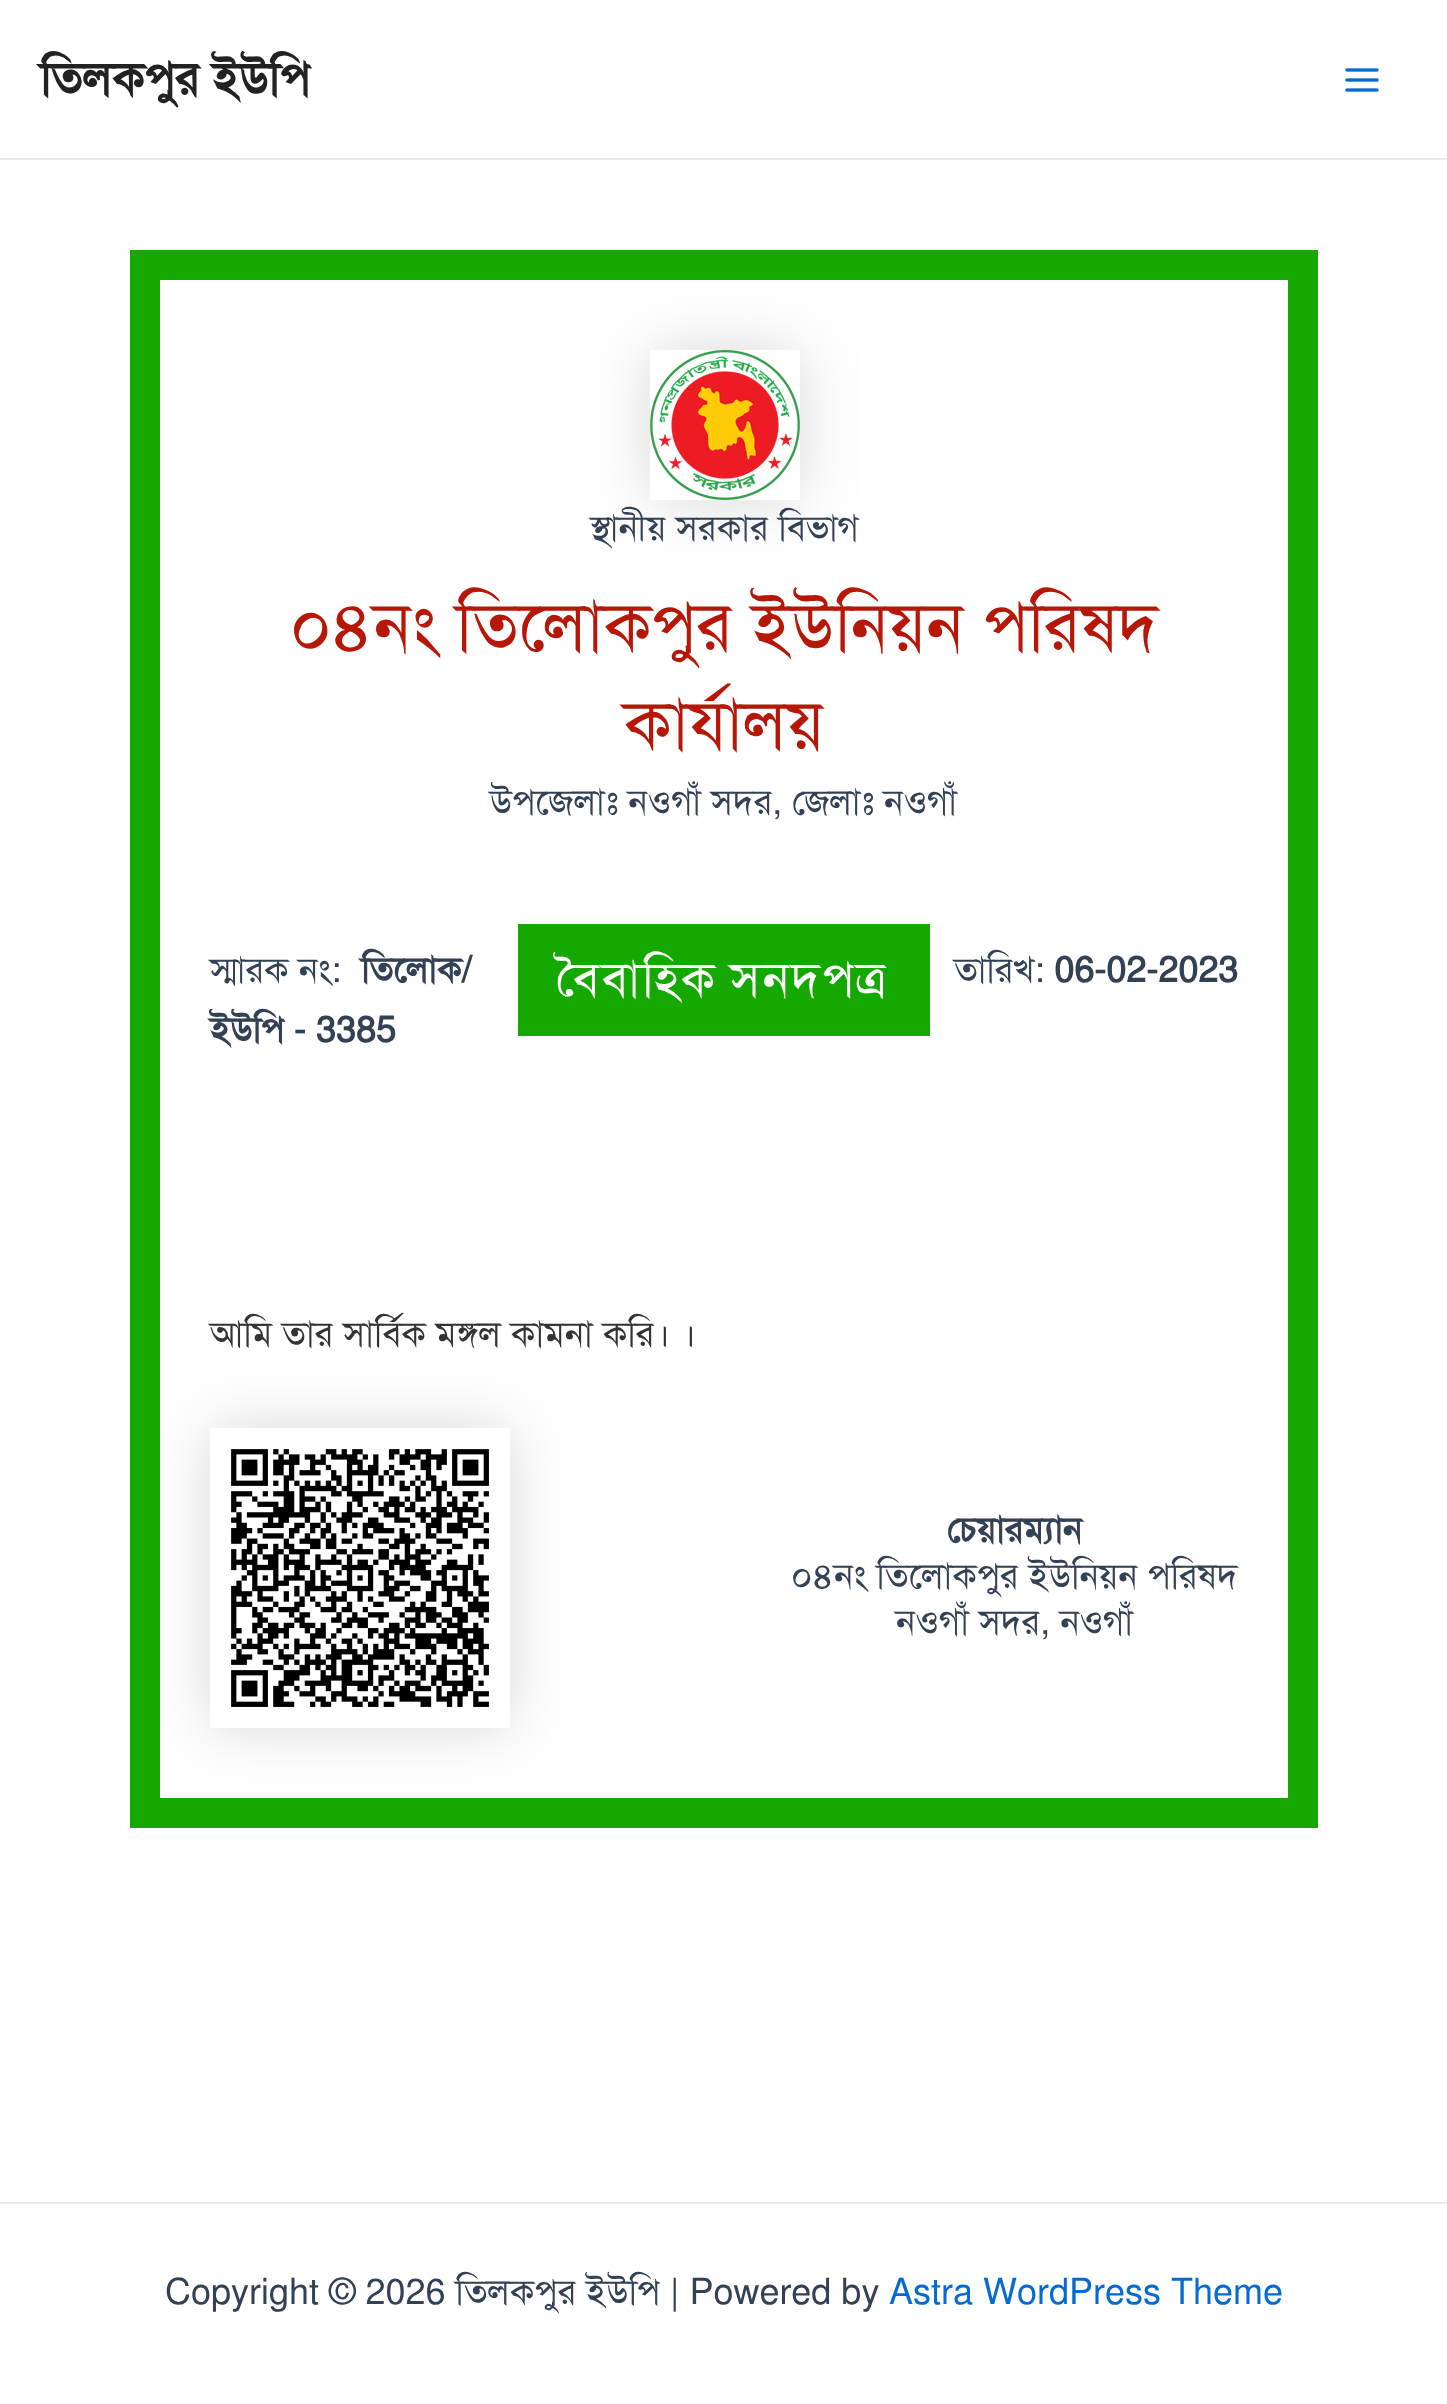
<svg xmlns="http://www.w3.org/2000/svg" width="1447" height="2404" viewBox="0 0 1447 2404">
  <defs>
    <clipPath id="clip1"><path d="M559 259H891V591H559ZM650 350H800V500H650Z" clip-rule="evenodd"/></clipPath>
    <clipPath id="clip2"><path d="M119 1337H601V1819H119ZM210 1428H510V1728H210Z" clip-rule="evenodd"/></clipPath>
  </defs>
  <rect width="100%" height="100%" fill="rgb(255,255,255)"/>
  <rect x="0" y="158" width="1447" height="2" fill="rgb(234,234,234)"/>
  <text x="40" y="95" font-family="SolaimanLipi" font-size="47.5" font-weight="bold" fill="rgb(34,34,34)">তিলকপুর ইউপি</text>
  <image x="1345" y="68" width="34" height="24" href="pic1.png"/>
  <rect x="145" y="265" width="1158" height="1548" fill="none" stroke="rgb(20,168,0)" stroke-width="30"/>
  <g clip-path="url(#clip1)">
    <rect x="650" y="350" width="150" height="150" fill="rgba(0,0,0,0.15)" filter="blur(30px)"/>
  </g>
  <image x="650" y="350" width="150" height="150" href="pic2.png"/>
  <text x="590" y="540" font-family="SolaimanLipi" font-size="36" fill="rgb(51,65,85)">স্থানীয় সরকার বিভাগ</text>
  <g font-family="SolaimanLipi" font-size="70" fill="rgb(183,23,7)">
    <text x="290" y="650">০৪নং তিলোকপুর ইউনিয়ন পরিষদ</text>
    <text x="624" y="748">কার্যালয়</text>
  </g>
  <g font-family="SolaimanLipi" font-size="36" fill="rgb(51,65,85)">
    <text x="490" y="814">উপজেলাঃ নওগাঁ সদর, জেলাঃ নওগাঁ</text>
    <text x="210" y="982">স্মারক নং:</text>
  </g>
  <g font-family="SolaimanLipi" font-size="36" font-weight="bold" fill="rgb(51,65,85)">
    <text x="361" y="982">তিলোক/</text>
    <text x="210" y="1042">ইউপি - 3385</text>
  </g>
  <rect x="518" y="924" width="412" height="112" fill="rgb(20,168,0)"/>
  <text x="557" y="996" word-spacing="-3" font-family="SolaimanLipi" font-size="50" letter-spacing="2" fill="rgb(255,255,255)">বৈবাহিক সনদপত্র</text>
  <text x="954" y="982" font-family="SolaimanLipi" font-size="36" fill="rgb(51,65,85)">তারিখ:</text>
  <text x="1054" y="982" font-family="SolaimanLipi" font-size="36" font-weight="bold" fill="rgb(51,65,85)">06-02-2023</text>
  <text x="210" y="1346" font-family="SolaimanLipi" font-size="36" fill="rgb(51,51,51)">আমি তার সার্বিক মঙ্গল কামনা করি। ।</text>
  <g clip-path="url(#clip2)">
    <rect x="210" y="1428" width="300" height="300" fill="rgba(0,0,0,0.15)" filter="blur(30px)"/>
  </g>
  <image x="231" y="1449" width="258" height="258" href="pic3.png"/>
  <text x="947" y="1542" font-family="SolaimanLipi" font-size="36" font-weight="bold" fill="rgb(51,65,85)">চেয়ারম্যান</text>
  <g font-family="SolaimanLipi" font-size="36" fill="rgb(51,65,85)">
    <text x="791" y="1588">০৪নং তিলোকপুর ইউনিয়ন পরিষদ</text>
    <text x="896" y="1634">নওগাঁ সদর, নওগাঁ</text>
  </g>
  <rect x="0" y="2202" width="1447" height="2" fill="rgb(234,234,234)"/>
  <text x="165" y="2304" font-family="SolaimanLipi" font-size="36" fill="rgb(51,65,85)">Copyright © 2026 তিলকপুর ইউপি | Powered by</text>
  <text x="889" y="2304" font-family="SolaimanLipi" font-size="36" fill="rgb(4,107,210)">Astra WordPress Theme</text>
</svg>
